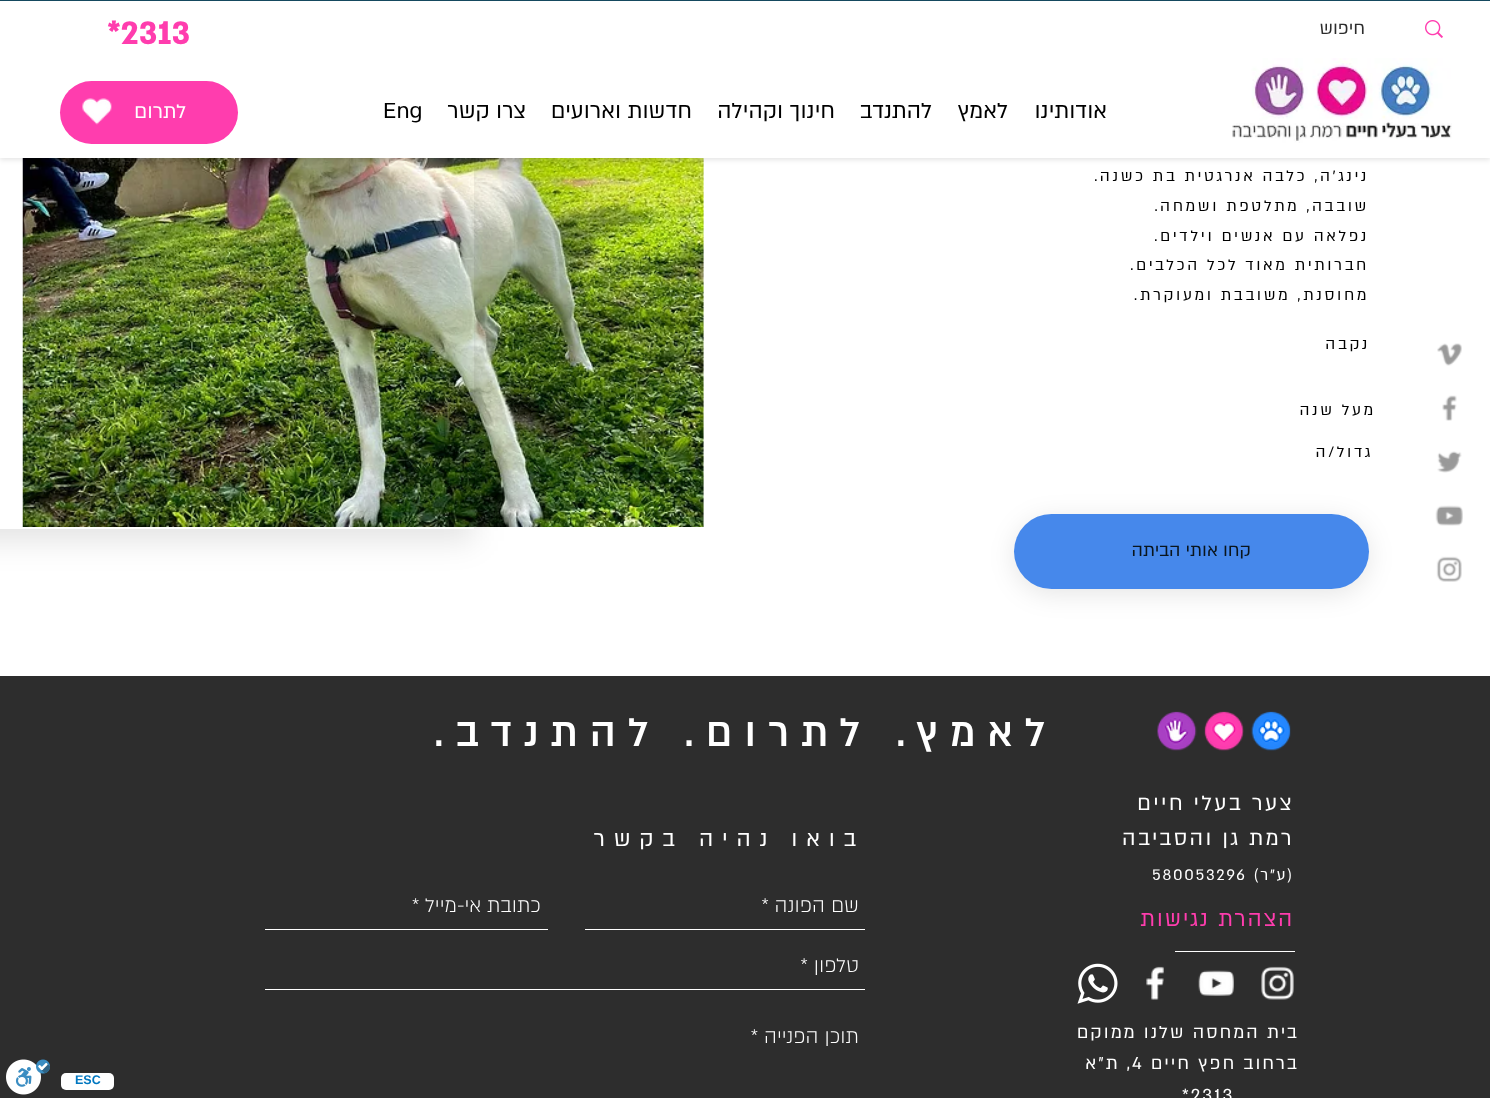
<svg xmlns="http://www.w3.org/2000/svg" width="1490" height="1098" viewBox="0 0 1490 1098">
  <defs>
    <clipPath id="clip1"><path d="M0 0H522V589H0ZM-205-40H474V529H-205Z" clip-rule="evenodd"/></clipPath>
  </defs>
  <rect width="100%" height="100%" fill="rgb(255,255,255)"/>
  <image x="22" y="158" width="682" height="369" href="pic9.png"/>
  <rect x="0" y="3" width="1490" height="157" fill="rgba(0,0,0,0.1)" filter="blur(2.5px)"/>
  <g clip-path="url(#clip1)">
    <rect x="-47" y="-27" width="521" height="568" fill="rgba(0,0,0,0.11)" filter="blur(15.5px)"/>
  </g>
  <rect x="0" y="1" width="1490" height="157" fill="rgb(255,255,255)"/>
  <image x="1425" y="20" width="18" height="18" href="pic1.png"/>
  <text x="1365" y="34" font-family="'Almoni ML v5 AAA'" font-size="20" direction="rtl" fill="rgb(45,45,45)">חיפוש</text>
  <image x="1232" y="58" width="220" height="85" href="pic2.png"/>
  <text x="107" y="44" font-family="'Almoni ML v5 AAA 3'" font-size="37.5" font-weight="bold" fill="rgb(255,61,174)">*2313</text>
  <rect x="60" y="81" width="178" height="63" rx="31.5" fill="rgb(255,61,174)"/>
  <text x="186" y="118" font-family="'Almoni ML v5 AAA'" font-size="22.5" direction="rtl" fill="rgb(255,255,255)">לתרום</text>
  <image x="82" y="98" width="30" height="27" href="pic3.png"/>
  <g font-family="'Almoni ML v5 AAA'" font-size="25" direction="rtl" fill="rgb(0,0,0)">
    <text x="1107" y="118">אודותינו</text>
    <text x="1008" y="118">לאמץ</text>
    <text x="932" y="118">להתנדב</text>
    <text x="835" y="118">חינוך וקהילה</text>
    <text x="692" y="118">חדשות וארועים</text>
    <text x="526" y="118">צרו קשר</text>
  </g>
  <text x="383" y="118" font-family="'Almoni ML v5 AAA'" font-size="25" fill="rgb(0,0,0)">Eng</text>
  <image x="1437" y="343" width="25" height="23" href="pic4.png"/>
  <image x="1442" y="395" width="15" height="26" href="pic5.png"/>
  <image x="1437" y="451" width="25" height="22" href="pic6.png"/>
  <image x="1435" y="505" width="28" height="21" href="pic7.png"/>
  <image x="1436" y="556" width="26" height="26" href="pic8.png"/>
  <g font-family="'Almoni ML v5 AAA'" font-size="17.5" letter-spacing="2.6" direction="rtl" fill="rgb(0,0,0)">
    <text>
      <tspan x="1369" y="181">נינג'ה, כלבה אנרגטית בת כשנה.</tspan>
      <tspan x="1369" y="211">שובבה, מתלטפת ושמחה.</tspan>
      <tspan x="1369" y="241">נפלאה עם אנשים וילדים.</tspan>
      <tspan x="1369" y="270">חברותית מאוד לכל הכלבים.</tspan>
      <tspan x="1369" y="300">מחוסנת, משובבת ומעוקרת.</tspan>
    </text>
    <text x="1370" y="349">נקבה</text>
    <text x="1376" y="415">מעל שנה</text>
    <text x="1373" y="457">גדול/ה</text>
  </g>
  <rect x="1014" y="519" width="355" height="75" rx="37.5" fill="rgba(0,0,0,0.1)" filter="blur(13px)"/>
  <rect x="1014" y="514" width="355" height="75" rx="37.5" fill="rgb(70,136,235)"/>
  <text x="1251" y="556" font-family="'Almoni ML v5 AAA'" font-size="20" direction="rtl" fill="rgb(10,21,28)">קחו אותי הביתה</text>
  <rect x="0" y="676" width="1490" height="422" fill="rgb(45,45,45)"/>
  <image x="1157" y="711" width="134" height="40" href="pic10.png"/>
  <text x="1057" y="746" font-family="'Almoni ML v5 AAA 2'" font-size="43.75" font-weight="bold" letter-spacing="13.1" direction="rtl" fill="rgb(255,255,255)">לאמץ. לתרום. להתנדב.</text>
  <g font-family="'Almoni ML v5 AAA'" font-size="23.75" letter-spacing="2.4" direction="rtl" fill="rgb(255,255,255)">
    <text>
      <tspan x="1294" y="810">צער בעלי חיים</tspan>
      <tspan x="1294" y="845">רמת גן והסביבה</tspan>
    </text>
  </g>
  <text x="1294" y="880" font-family="'Almoni ML v5 AAA'" font-size="17.5" letter-spacing="1.75" direction="rtl" fill="rgb(255,255,255)">(ע"ר)</text>
  <text x="1152" y="880" font-family="'Almoni ML v5 AAA'" font-size="17.5" letter-spacing="1.75" fill="rgb(255,255,255)">580053296</text>
  <text x="865" y="846" font-family="'Almoni ML v5 AAA'" font-size="25" letter-spacing="8.75" direction="rtl" fill="rgb(255,255,255)">בואו נהיה בקשר</text>
  <text x="1294" y="926" font-family="'Almoni ML v5 AAA'" font-size="23.75" font-weight="bold" letter-spacing="2.4" direction="rtl" fill="rgb(255,61,174)">הצהרת נגישות</text>
  <rect x="585" y="929" width="280" height="1" fill="rgb(255,255,255)"/>
  <text x="859" y="912" font-family="'Almoni ML v5 AAA'" font-size="22.5" font-weight="300" direction="rtl" fill="rgb(255,255,255)">שם הפונה *</text>
  <rect x="265" y="929" width="283" height="1" fill="rgb(255,255,255)"/>
  <text x="541" y="912" font-family="'Almoni ML v5 AAA'" font-size="22.5" font-weight="300" direction="rtl" fill="rgb(255,255,255)">כתובת אי-מייל *</text>
  <rect x="265" y="989" width="600" height="1" fill="rgb(255,255,255)"/>
  <g font-family="'Almoni ML v5 AAA'" font-size="22.5" font-weight="300" direction="rtl" fill="rgb(255,255,255)">
    <text x="859" y="972">טלפון *</text>
    <text x="859" y="1043">תוכן הפנייה *</text>
  </g>
  <rect x="1175" y="951" width="120" height="1" fill="rgb(255,255,255)"/>
  <image x="1261" y="966" width="33" height="34" href="pic11.png"/>
  <image x="1198" y="970" width="36" height="26" href="pic12.png"/>
  <image x="1146" y="966" width="18" height="34" href="pic13.png"/>
  <image x="1077" y="963" width="41" height="41" href="pic14.png"/>
  <g font-family="'Almoni ML v5 AAA'" font-size="20" letter-spacing="2" direction="rtl" fill="rgb(255,255,255)">
    <text>
      <tspan x="1299" y="1038">בית המחסה שלנו ממוקם</tspan>
      <tspan x="1299" y="1069">ברחוב חפץ חיים</tspan>
    </text>
  </g>
  <text x="1132" y="1069" font-family="'Almoni ML v5 AAA'" font-size="20" letter-spacing="2" fill="rgb(255,255,255)">4</text>
  <text x="1132" y="1069" font-family="'Almoni ML v5 AAA'" font-size="20" letter-spacing="2" direction="rtl" fill="rgb(255,255,255)">, ת״א</text>
  <text x="1182" y="1101" font-family="'Almoni ML v5 AAA'" font-size="20" letter-spacing="2" fill="rgb(255,255,255)">*2313</text>
  <rect x="0" y="0" width="1490" height="1" fill="rgb(21,73,95)"/>
  <rect x="61" y="1073" width="53" height="17" rx="5" fill="rgb(255,255,255)"/>
  <text x="75" y="1084" font-family="Liberation Sans" font-size="12.5" font-weight="bold" fill="rgb(0,119,192)">ESC</text>
  <image x="6" y="1059" width="44" height="36" href="pic15.png"/>
</svg>
